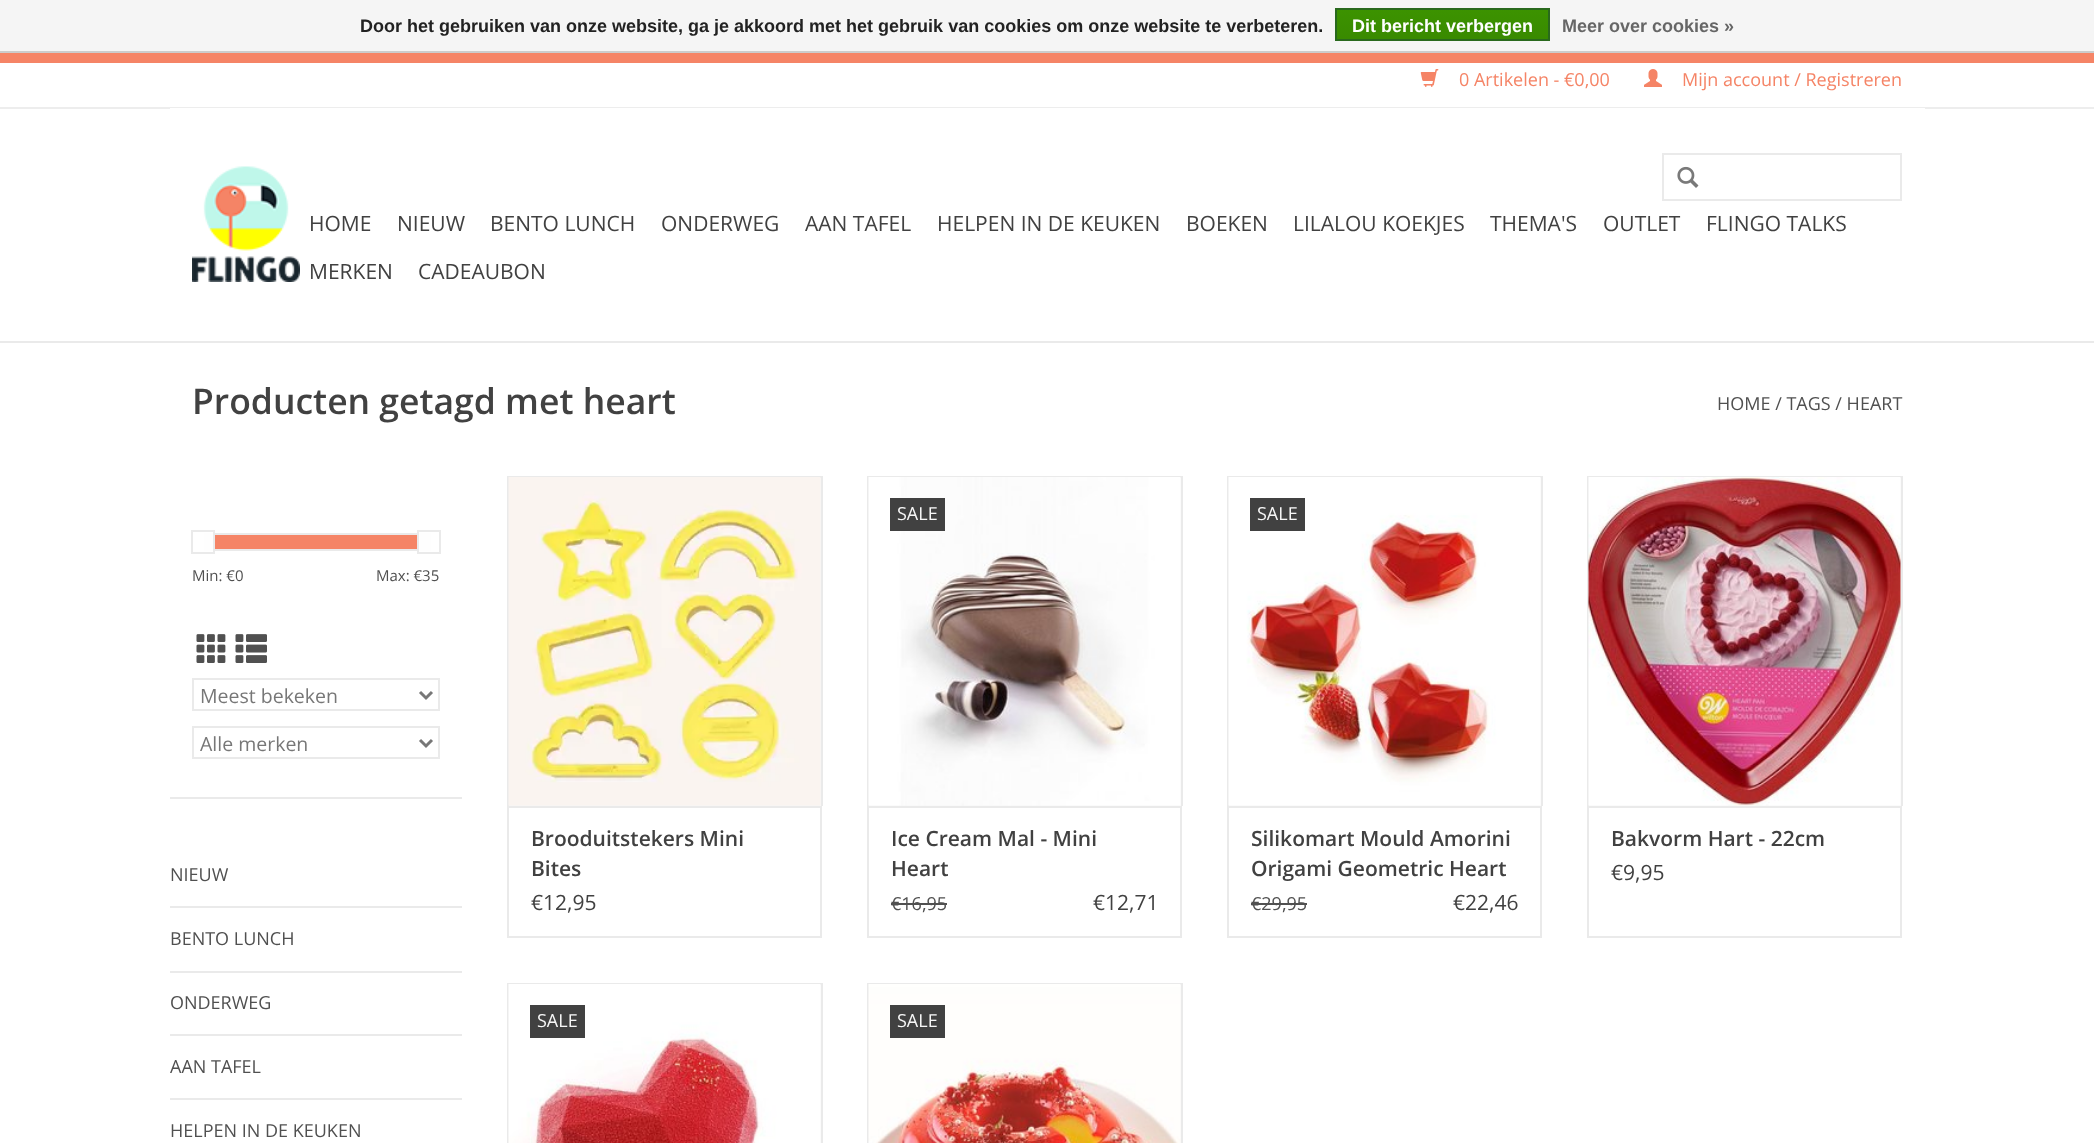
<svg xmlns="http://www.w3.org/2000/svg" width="2094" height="1143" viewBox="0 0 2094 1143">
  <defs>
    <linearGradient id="g1" gradientUnits="userSpaceOnUse" x1="1442" y1="9" x2="1442" y2="39"><stop offset="0" stop-color="rgb(60,147,0)"/><stop offset="1" stop-color="rgb(57,138,0)"/></linearGradient>
  </defs>
  <rect width="100%" height="100%" fill="rgb(255,255,255)"/>
  <rect x="0" y="0" width="2094" height="51" fill="rgb(245,245,245)"/>
  <rect x="0" y="51" width="2094" height="2" fill="rgb(204,204,204)"/>
  <text x="360" y="32" font-family="Liberation Sans" font-size="18" font-weight="bold" fill="rgb(34,34,34)">Door het gebruiken van onze website, ga je akkoord met het gebruik van cookies om onze website te verbeteren.</text>
  <rect x="1337" y="10" width="211" height="29" fill="url(#g1)"/>
  <rect x="1336" y="9" width="213" height="31" fill="none" stroke="rgb(41,105,29)" stroke-width="2"/>
  <text x="1352" y="32" font-family="Liberation Sans" font-size="18" font-weight="bold" fill="rgb(255,255,255)">Dit bericht verbergen</text>
  <text x="1562" y="32" font-family="Liberation Sans" font-size="18" font-weight="bold" fill="rgb(102,102,102)">Meer over cookies »</text>
  <rect x="0" y="53" width="2094" height="10" fill="rgb(245,132,102)"/>
  <rect x="0" y="341" width="2094" height="2" fill="rgb(234,234,234)"/>
  <rect x="0" y="107" width="2094" height="2" fill="rgb(237,237,237)"/>
  <image x="1420" y="69" width="19" height="18" href="pic1.png"/>
  <text x="1459" y="86" font-family="Open Sans" font-size="18" fill="rgb(245,132,102)">0 Artikelen - €0,00</text>
  <image x="1644" y="69" width="18" height="18" href="pic2.png"/>
  <text x="1682" y="86" font-family="Open Sans" font-size="18" fill="rgb(245,132,102)">Mijn account / Registreren</text>
  <rect x="170" y="108" width="1755" height="1" fill="rgb(255,255,255)"/>
  <image x="192" y="166" width="108" height="116" href="pic3.png"/>
  <rect x="1663" y="154" width="238" height="46" fill="none" stroke="rgb(234,234,234)" stroke-width="2"/>
  <image x="1677" y="166" width="22" height="22" href="pic4.png"/>
  <g font-family="Open Sans" font-size="21" fill="rgb(65,65,65)">
    <text x="309" y="231">HOME</text>
    <text x="397" y="231">NIEUW</text>
    <text x="490" y="231">BENTO LUNCH</text>
    <text x="661" y="231">ONDERWEG</text>
    <text x="805" y="231">AAN TAFEL</text>
    <text x="937" y="231">HELPEN IN DE KEUKEN</text>
    <text x="1186" y="231">BOEKEN</text>
    <text x="1293" y="231">LILALOU KOEKJES</text>
    <text x="1490" y="231">THEMA'S</text>
    <text x="1603" y="231">OUTLET</text>
    <text x="1706" y="231">FLINGO TALKS</text>
    <text x="309" y="279">MERKEN</text>
    <text x="418" y="279">CADEAUBON</text>
  </g>
  <text x="192" y="414" font-family="Open Sans" font-size="35.5" font-weight="600" fill="rgb(65,65,65)">Producten getagd met heart</text>
  <text x="1717" y="410" font-family="Open Sans" font-size="18" fill="rgb(80,80,80)">HOME / TAGS / HEART</text>
  <rect x="170" y="797" width="292" height="2" fill="rgb(234,234,234)"/>
  <rect x="215" y="535" width="202" height="14" fill="rgb(245,132,102)"/>
  <rect x="205" y="534" width="225" height="16" fill="none" stroke="rgb(234,234,234)" stroke-width="2"/>
  <rect x="204" y="533" width="9" height="18" fill="rgb(254,254,254)"/>
  <rect x="192" y="531" width="22" height="22" fill="none" stroke="rgb(234,234,234)" stroke-width="2"/>
  <rect x="419" y="533" width="12" height="18" fill="rgb(254,254,254)"/>
  <rect x="418" y="531" width="22" height="22" fill="none" stroke="rgb(234,234,234)" stroke-width="2"/>
  <g font-family="Open Sans" font-size="15" fill="rgb(80,80,80)">
    <text x="192" y="581">Min: €0</text>
    <text x="376" y="581">Max: €35</text>
  </g>
  <image x="196" y="634" width="30" height="29" href="pic5.png"/>
  <image x="235" y="634" width="32" height="29" href="pic6.png"/>
  <rect x="193" y="679" width="246" height="31" fill="none" stroke="rgb(234,234,234)" stroke-width="2"/>
  <path d="M420 692L426 698L432 692" fill="none" stroke="rgb(119,119,119)" stroke-width="3"/>
  <text x="200" y="703" font-family="Open Sans" font-size="19.5" fill="rgb(119,119,119)">Meest bekeken</text>
  <rect x="193" y="727" width="246" height="31" fill="none" stroke="rgb(234,234,234)" stroke-width="2"/>
  <path d="M420 740L426 746L432 740" fill="none" stroke="rgb(119,119,119)" stroke-width="3"/>
  <text x="200" y="751" font-family="Open Sans" font-size="19.5" fill="rgb(119,119,119)">Alle merken</text>
  <rect x="170" y="906" width="292" height="2" fill="rgb(234,234,234)"/>
  <text x="170" y="881" font-family="Open Sans" font-size="18" fill="rgb(80,80,80)">NIEUW</text>
  <rect x="170" y="971" width="292" height="2" fill="rgb(234,234,234)"/>
  <text x="170" y="945" font-family="Open Sans" font-size="18" fill="rgb(80,80,80)">BENTO LUNCH</text>
  <rect x="170" y="1034" width="292" height="2" fill="rgb(234,234,234)"/>
  <text x="170" y="1009" font-family="Open Sans" font-size="18" fill="rgb(80,80,80)">ONDERWEG</text>
  <rect x="170" y="1098" width="292" height="2" fill="rgb(234,234,234)"/>
  <g font-family="Open Sans" font-size="18" fill="rgb(80,80,80)">
    <text x="170" y="1073">AAN TAFEL</text>
    <text x="170" y="1137">HELPEN IN DE KEUKEN</text>
  </g>
  <rect x="509" y="478" width="312" height="328" fill="rgb(247,247,247)"/>
  <rect x="507" y="476" width="315" height="2" fill="rgb(234,234,234)"/>
  <rect x="821" y="476" width="2" height="330" fill="rgb(234,234,234)"/>
  <rect x="507" y="476" width="2" height="330" fill="rgb(234,234,234)"/>
  <image x="508" y="477" width="313" height="329" href="pic7.png"/>
  <rect x="508" y="807" width="313" height="130" fill="none" stroke="rgb(234,234,234)" stroke-width="2"/>
  <g font-family="Open Sans" font-size="21" font-weight="600" fill="rgb(65,65,65)">
    <text>
      <tspan x="531" y="846">Brooduitstekers Mini</tspan>
      <tspan x="531" y="876">Bites</tspan>
    </text>
  </g>
  <text x="531" y="910" font-family="Open Sans" font-size="21" fill="rgb(65,65,65)">€12,95</text>
  <rect x="869" y="478" width="312" height="328" fill="rgb(247,247,247)"/>
  <rect x="867" y="476" width="315" height="2" fill="rgb(234,234,234)"/>
  <rect x="1181" y="476" width="2" height="330" fill="rgb(234,234,234)"/>
  <rect x="867" y="476" width="2" height="330" fill="rgb(234,234,234)"/>
  <image x="868" y="477" width="313" height="329" href="pic8.png"/>
  <rect x="890" y="498" width="55" height="33" fill="rgb(65,65,65)"/>
  <text x="897" y="520" font-family="Open Sans" font-size="18" fill="rgb(247,247,247)">SALE</text>
  <rect x="868" y="807" width="313" height="130" fill="none" stroke="rgb(234,234,234)" stroke-width="2"/>
  <g font-family="Open Sans" font-size="21" font-weight="600" fill="rgb(65,65,65)">
    <text>
      <tspan x="891" y="846">Ice Cream Mal - Mini</tspan>
      <tspan x="891" y="876">Heart</tspan>
    </text>
  </g>
  <text x="891" y="910" font-family="Open Sans" font-size="18" fill="rgb(80,80,80)">€16,95</text>
  <rect x="891" y="903" width="56" height="2" fill="rgb(80,80,80)"/>
  <text x="1093" y="910" font-family="Open Sans" font-size="21" fill="rgb(65,65,65)">€12,71</text>
  <rect x="1229" y="478" width="312" height="328" fill="rgb(247,247,247)"/>
  <rect x="1227" y="476" width="315" height="2" fill="rgb(234,234,234)"/>
  <rect x="1541" y="476" width="2" height="330" fill="rgb(234,234,234)"/>
  <rect x="1227" y="476" width="2" height="330" fill="rgb(234,234,234)"/>
  <image x="1228" y="477" width="313" height="329" href="pic9.png"/>
  <rect x="1250" y="498" width="55" height="33" fill="rgb(65,65,65)"/>
  <text x="1257" y="520" font-family="Open Sans" font-size="18" fill="rgb(247,247,247)">SALE</text>
  <rect x="1228" y="807" width="313" height="130" fill="none" stroke="rgb(234,234,234)" stroke-width="2"/>
  <g font-family="Open Sans" font-size="21" font-weight="600" fill="rgb(65,65,65)">
    <text>
      <tspan x="1251" y="846">Silikomart Mould Amorini</tspan>
      <tspan x="1251" y="876">Origami Geometric Heart</tspan>
    </text>
  </g>
  <text x="1251" y="910" font-family="Open Sans" font-size="18" fill="rgb(80,80,80)">€29,95</text>
  <rect x="1251" y="903" width="56" height="2" fill="rgb(80,80,80)"/>
  <text x="1453" y="910" font-family="Open Sans" font-size="21" fill="rgb(65,65,65)">€22,46</text>
  <rect x="1589" y="478" width="312" height="328" fill="rgb(247,247,247)"/>
  <rect x="1587" y="476" width="315" height="2" fill="rgb(234,234,234)"/>
  <rect x="1901" y="476" width="2" height="330" fill="rgb(234,234,234)"/>
  <rect x="1587" y="476" width="2" height="330" fill="rgb(234,234,234)"/>
  <image x="1588" y="477" width="313" height="329" href="pic10.png"/>
  <rect x="1588" y="807" width="313" height="130" fill="none" stroke="rgb(234,234,234)" stroke-width="2"/>
  <text x="1611" y="846" font-family="Open Sans" font-size="21" font-weight="600" fill="rgb(65,65,65)">Bakvorm Hart - 22cm</text>
  <text x="1611" y="880" font-family="Open Sans" font-size="21" fill="rgb(65,65,65)">€9,95</text>
  <rect x="820" y="985" width="1" height="158" fill="rgb(247,247,247)"/>
  <rect x="507" y="983" width="315" height="2" fill="rgb(234,234,234)"/>
  <rect x="821" y="983" width="2" height="160" fill="rgb(234,234,234)"/>
  <rect x="507" y="983" width="2" height="160" fill="rgb(234,234,234)"/>
  <image x="508" y="984" width="313" height="159" href="pic11.png"/>
  <rect x="530" y="1005" width="55" height="33" fill="rgb(65,65,65)"/>
  <text x="537" y="1027" font-family="Open Sans" font-size="18" fill="rgb(247,247,247)">SALE</text>
  <rect x="1180" y="985" width="1" height="158" fill="rgb(247,247,247)"/>
  <rect x="867" y="983" width="315" height="2" fill="rgb(234,234,234)"/>
  <rect x="1181" y="983" width="2" height="160" fill="rgb(234,234,234)"/>
  <rect x="867" y="983" width="2" height="160" fill="rgb(234,234,234)"/>
  <image x="868" y="984" width="313" height="159" href="pic12.png"/>
  <rect x="890" y="1005" width="55" height="33" fill="rgb(65,65,65)"/>
  <text x="897" y="1027" font-family="Open Sans" font-size="18" fill="rgb(247,247,247)">SALE</text>
</svg>
